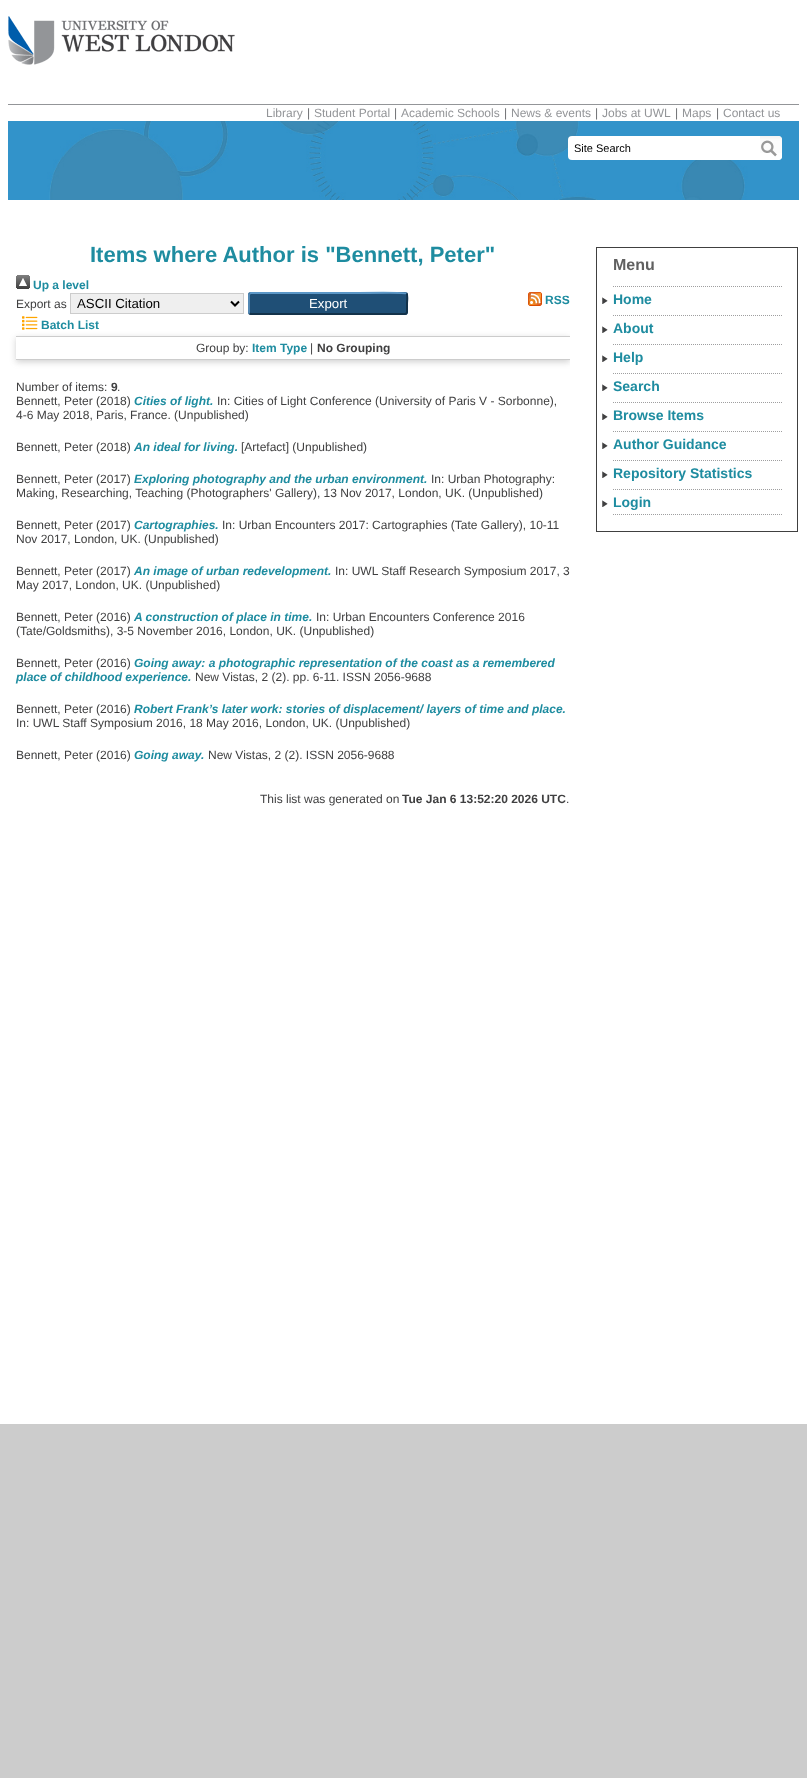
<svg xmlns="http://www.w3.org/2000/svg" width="807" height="1778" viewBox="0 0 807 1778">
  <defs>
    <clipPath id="clip1"><rect x="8" y="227" width="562" height="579"/></clipPath>
    <clipPath id="clip2"><path d="M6 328H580V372H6ZM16 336H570V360H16Z" clip-rule="evenodd"/></clipPath>
  </defs>
  <rect width="100%" height="100%" fill="rgb(204,204,204)"/>
  <rect x="0" y="0" width="807" height="1424" fill="rgb(255,255,255)"/>
  <rect x="8" y="104" width="791" height="1" fill="rgb(147,149,152)"/>
  <image x="8" y="16" width="227" height="49" href="pic1.png"/>
  <text x="266" y="117" font-family="Liberation Sans" font-size="12" fill="rgb(147,149,152)">Library</text>
  <text x="307" y="117" font-family="Liberation Sans" font-size="12" fill="rgb(109,110,113)">|</text>
  <text x="314" y="117" font-family="Liberation Sans" font-size="12" fill="rgb(147,149,152)">Student Portal</text>
  <text x="394" y="117" font-family="Liberation Sans" font-size="12" fill="rgb(109,110,113)">|</text>
  <text x="401" y="117" font-family="Liberation Sans" font-size="12" fill="rgb(147,149,152)">Academic Schools</text>
  <text x="504" y="117" font-family="Liberation Sans" font-size="12" fill="rgb(109,110,113)">|</text>
  <text x="511" y="117" font-family="Liberation Sans" font-size="12" fill="rgb(147,149,152)">News &amp; events</text>
  <text x="595" y="117" font-family="Liberation Sans" font-size="12" fill="rgb(109,110,113)">|</text>
  <text x="602" y="117" font-family="Liberation Sans" font-size="12" fill="rgb(147,149,152)">Jobs at UWL</text>
  <text x="675" y="117" font-family="Liberation Sans" font-size="12" fill="rgb(109,110,113)">|</text>
  <text x="682" y="117" font-family="Liberation Sans" font-size="12" fill="rgb(147,149,152)">Maps</text>
  <text x="716" y="117" font-family="Liberation Sans" font-size="12" fill="rgb(109,110,113)">|</text>
  <text x="723" y="117" font-family="Liberation Sans" font-size="12" fill="rgb(147,149,152)">Contact us</text>
  <image x="8" y="121" width="791" height="79" href="pic3.png"/>
  <rect x="568" y="136" width="214" height="24" rx="4" fill="rgb(255,255,255)"/>
  <image x="760" y="136" width="22" height="24" href="pic2.png"/>
  <text x="574" y="152" font-family="Liberation Sans" font-size="11" fill="rgb(0,0,0)">Site Search</text>
  <text x="90" y="262" font-family="Liberation Sans" font-size="22" font-weight="bold" fill="rgb(30,140,160)">Items where Author is "Bennett, Peter"</text>
  <image x="16" y="275" width="14" height="14" href="pic4.png"/>
  <text x="33" y="289" font-family="Liberation Sans" font-size="12" font-weight="bold" fill="rgb(30,140,160)">Up a level</text>
  <text x="16" y="308" font-family="Liberation Sans" font-size="12" fill="rgb(64,64,65)">Export as</text>
  <rect x="70.5" y="293.5" width="173" height="20" fill="rgb(239,239,239)" stroke="rgb(204,204,204)"/>
  <path d="M231 301.5L235 305.5L239 301.5" fill="none" stroke="rgb(0,0,0)" stroke-width="2"/>
  <text x="77" y="308" font-family="Liberation Sans" font-size="13.25" fill="rgb(0,0,0)">ASCII Citation</text>
  <rect x="248" y="292" width="160" height="23" rx="3" fill="rgb(31,79,118)"/>
  <path d="M249.5 293.5L251 293H353.5C357.5 293 405 292 406.5 293.5" fill="none" stroke="rgb(91,151,199)" stroke-width="2"/>
  <path d="M406.5 293.5C408 295 407 301.5 407 303.5V309C407 310.5 407.5 314 405 314H251L249.5 313.5" fill="none" stroke="rgb(19,50,74)" stroke-width="2"/>
  <path d="M249.5 313.5C249 313 249 312.5 249 312V295C249 294.5 249 294 249.5 293.5" fill="none" stroke="rgb(82,135,179)" stroke-width="2"/>
  <text x="309" y="308" font-family="Liberation Sans" font-size="13.25" fill="rgb(255,255,255)">Export</text>
  <image x="528" y="292" width="14" height="14" href="pic5.png"/>
  <text x="545" y="304" font-family="Liberation Sans" font-size="12" font-weight="bold" fill="rgb(30,140,160)">RSS</text>
  <g clip-path="url(#clip1)">
    <g clip-path="url(#clip2)">
      <rect x="16" y="338" width="554" height="24" fill="rgba(100,100,100,0.3)" filter="blur(3px)"/>
    </g>
  </g>
  <image x="22" y="316" width="16" height="14" href="pic6.png"/>
  <text x="41" y="329" font-family="Liberation Sans" font-size="12" font-weight="bold" fill="rgb(30,140,160)">Batch List</text>
  <rect x="16" y="336" width="554" height="1" fill="rgb(204,204,204)"/>
  <rect x="16" y="359" width="554" height="1" fill="rgb(204,204,204)"/>
  <text x="196" y="352" font-family="Liberation Sans" font-size="12" fill="rgb(64,64,65)">Group by:</text>
  <text x="252" y="352" font-family="Liberation Sans" font-size="12" font-weight="bold" fill="rgb(30,140,160)">Item Type</text>
  <text x="310" y="352" font-family="Liberation Sans" font-size="12" fill="rgb(64,64,65)">|</text>
  <text x="317" y="352" font-family="Liberation Sans" font-size="12" font-weight="bold" fill="rgb(64,64,65)">No Grouping</text>
  <text x="16" y="391" font-family="Liberation Sans" font-size="12" fill="rgb(64,64,65)">Number of items:</text>
  <text x="111" y="391" font-family="Liberation Sans" font-size="12" font-weight="bold" fill="rgb(64,64,65)">9</text>
  <g font-family="Liberation Sans" font-size="12" fill="rgb(64,64,65)">
    <text x="117" y="391">.</text>
    <text x="16" y="405">Bennett, Peter (2018)</text>
  </g>
  <text x="134" y="405" font-family="Liberation Sans" font-size="12" font-weight="bold" font-style="italic" fill="rgb(30,140,160)">Cities of light.</text>
  <g font-family="Liberation Sans" font-size="12" fill="rgb(64,64,65)">
    <text x="217" y="405">In: Cities of Light Conference (University of Paris V - Sorbonne),</text>
    <text x="16" y="419">4-6 May 2018, Paris, France. (Unpublished)</text>
    <text x="16" y="451">Bennett, Peter (2018)</text>
  </g>
  <text x="134" y="451" font-family="Liberation Sans" font-size="12" font-weight="bold" font-style="italic" fill="rgb(30,140,160)">An ideal for living.</text>
  <g font-family="Liberation Sans" font-size="12" fill="rgb(64,64,65)">
    <text x="241" y="451">[Artefact] (Unpublished)</text>
    <text x="16" y="483">Bennett, Peter (2017)</text>
  </g>
  <text x="134" y="483" font-family="Liberation Sans" font-size="12" font-weight="bold" font-style="italic" fill="rgb(30,140,160)">Exploring photography and the urban environment.</text>
  <g font-family="Liberation Sans" font-size="12" fill="rgb(64,64,65)">
    <text x="431" y="483">In: Urban Photography:</text>
    <text x="16" y="497">Making, Researching, Teaching (Photographers' Gallery), 13 Nov 2017, London, UK. (Unpublished)</text>
    <text x="16" y="529">Bennett, Peter (2017)</text>
  </g>
  <text x="134" y="529" font-family="Liberation Sans" font-size="12" font-weight="bold" font-style="italic" fill="rgb(30,140,160)">Cartographies.</text>
  <g font-family="Liberation Sans" font-size="12" fill="rgb(64,64,65)">
    <text x="222" y="529">In: Urban Encounters 2017: Cartographies (Tate Gallery), 10-11</text>
    <text x="16" y="543">Nov 2017, London, UK. (Unpublished)</text>
    <text x="16" y="575">Bennett, Peter (2017)</text>
  </g>
  <text x="134" y="575" font-family="Liberation Sans" font-size="12" font-weight="bold" font-style="italic" fill="rgb(30,140,160)">An image of urban redevelopment.</text>
  <g font-family="Liberation Sans" font-size="12" fill="rgb(64,64,65)">
    <text x="335" y="575">In: UWL Staff Research Symposium 2017, 3</text>
    <text x="16" y="589">May 2017, London, UK. (Unpublished)</text>
    <text x="16" y="621">Bennett, Peter (2016)</text>
  </g>
  <text x="134" y="621" font-family="Liberation Sans" font-size="12" font-weight="bold" font-style="italic" fill="rgb(30,140,160)">A construction of place in time.</text>
  <g font-family="Liberation Sans" font-size="12" fill="rgb(64,64,65)">
    <text x="316" y="621">In: Urban Encounters Conference 2016</text>
    <text x="16" y="635">(Tate/Goldsmiths), 3-5 November 2016, London, UK. (Unpublished)</text>
    <text x="16" y="667">Bennett, Peter (2016)</text>
  </g>
  <g font-family="Liberation Sans" font-size="12" font-weight="bold" font-style="italic" fill="rgb(30,140,160)">
    <text x="134" y="667">Going away: a photographic representation of the coast as a remembered</text>
    <text x="16" y="681">place of childhood experience.</text>
  </g>
  <g font-family="Liberation Sans" font-size="12" fill="rgb(64,64,65)">
    <text x="195" y="681">New Vistas, 2 (2). pp. 6-11. ISSN 2056-9688</text>
    <text x="16" y="713">Bennett, Peter (2016)</text>
  </g>
  <text x="134" y="713" font-family="Liberation Sans" font-size="12" font-weight="bold" font-style="italic" fill="rgb(30,140,160)">Robert Frank’s later work: stories of displacement/ layers of time and place.</text>
  <g font-family="Liberation Sans" font-size="12" fill="rgb(64,64,65)">
    <text x="16" y="727">In: UWL Staff Symposium 2016, 18 May 2016, London, UK. (Unpublished)</text>
    <text x="16" y="759">Bennett, Peter (2016)</text>
  </g>
  <text x="134" y="759" font-family="Liberation Sans" font-size="12" font-weight="bold" font-style="italic" fill="rgb(30,140,160)">Going away.</text>
  <g font-family="Liberation Sans" font-size="12" fill="rgb(64,64,65)">
    <text x="208" y="759">New Vistas, 2 (2). ISSN 2056-9688</text>
    <text x="260" y="803">This list was generated on</text>
  </g>
  <text x="402" y="803" font-family="Liberation Sans" font-size="12" font-weight="bold" fill="rgb(64,64,65)">Tue Jan 6 13:52:20 2026 UTC</text>
  <text x="566" y="803" font-family="Liberation Sans" font-size="12" fill="rgb(64,64,65)">.</text>
  <rect x="596.5" y="247.5" width="201" height="284" fill="none" stroke="rgb(64,64,64)"/>
  <text x="613" y="270" font-family="Liberation Sans" font-size="16" font-weight="bold" fill="rgb(96,96,96)">Menu</text>
  <image x="602" y="297" width="6" height="7" href="pic7.png"/>
  <path d="M613 286.5H783" fill="none" stroke="rgb(159,159,160)" stroke-dasharray="1 1"/>
  <text x="613" y="304" font-family="Liberation Sans" font-size="14" font-weight="bold" fill="rgb(30,140,160)">Home</text>
  <image x="602" y="326" width="6" height="7" href="pic7.png"/>
  <path d="M613 315.5H783" fill="none" stroke="rgb(159,159,160)" stroke-dasharray="1 1"/>
  <text x="613" y="333" font-family="Liberation Sans" font-size="14" font-weight="bold" fill="rgb(30,140,160)">About</text>
  <image x="602" y="355" width="6" height="7" href="pic7.png"/>
  <path d="M613 344.5H783" fill="none" stroke="rgb(159,159,160)" stroke-dasharray="1 1"/>
  <text x="613" y="362" font-family="Liberation Sans" font-size="14" font-weight="bold" fill="rgb(30,140,160)">Help</text>
  <image x="602" y="384" width="6" height="7" href="pic7.png"/>
  <path d="M613 373.5H783" fill="none" stroke="rgb(159,159,160)" stroke-dasharray="1 1"/>
  <text x="613" y="391" font-family="Liberation Sans" font-size="14" font-weight="bold" fill="rgb(30,140,160)">Search</text>
  <image x="602" y="413" width="6" height="7" href="pic7.png"/>
  <path d="M613 402.5H783" fill="none" stroke="rgb(159,159,160)" stroke-dasharray="1 1"/>
  <text x="613" y="420" font-family="Liberation Sans" font-size="14" font-weight="bold" fill="rgb(30,140,160)">Browse Items</text>
  <image x="602" y="442" width="6" height="7" href="pic7.png"/>
  <path d="M613 431.5H783" fill="none" stroke="rgb(159,159,160)" stroke-dasharray="1 1"/>
  <text x="613" y="449" font-family="Liberation Sans" font-size="14" font-weight="bold" fill="rgb(30,140,160)">Author Guidance</text>
  <image x="602" y="471" width="6" height="7" href="pic7.png"/>
  <path d="M613 460.5H783" fill="none" stroke="rgb(159,159,160)" stroke-dasharray="1 1"/>
  <text x="613" y="478" font-family="Liberation Sans" font-size="14" font-weight="bold" fill="rgb(30,140,160)">Repository Statistics</text>
  <image x="602" y="500" width="6" height="7" href="pic7.png"/>
  <path d="M613 489.5H783" fill="none" stroke="rgb(159,159,160)" stroke-dasharray="1 1"/>
  <path d="M613 514.5H783" fill="none" stroke="rgb(159,159,160)" stroke-dasharray="1 1"/>
  <text x="613" y="507" font-family="Liberation Sans" font-size="14" font-weight="bold" fill="rgb(30,140,160)">Login</text>
</svg>
